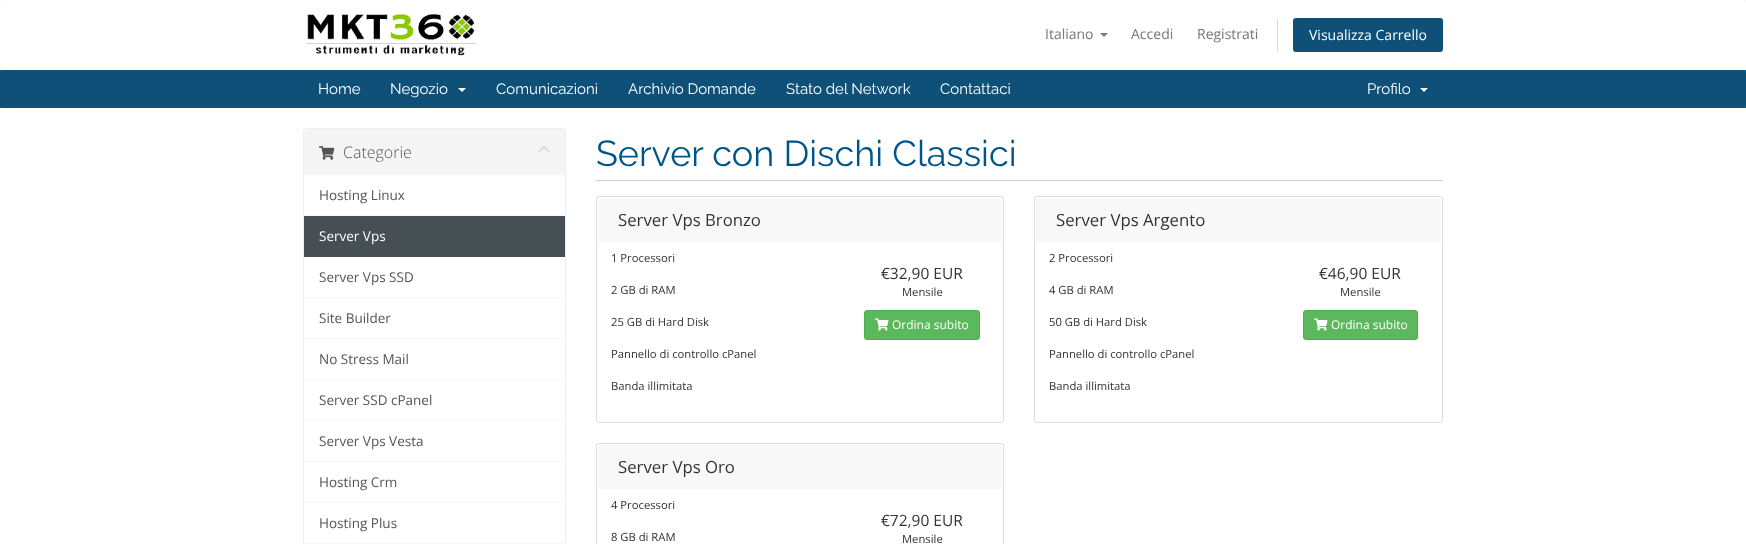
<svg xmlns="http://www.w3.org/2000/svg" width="1746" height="544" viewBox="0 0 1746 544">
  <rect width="100%" height="100%" fill="rgb(248,248,248)"/>
  <path d="M5 0H1741C1744 0 1746 2 1746 5V70H0V5C0 2 2 0 5 0Z" fill="rgb(255,255,255)"/>
  <image x="306" y="13" width="170" height="43" href="pic1.png"/>
  <text x="1045" y="39" font-family="Open Sans" font-size="14" fill="rgb(119,119,119)">Italiano</text>
  <path d="M1100 33H1108L1104 37Z" fill="rgb(119,119,119)"/>
  <g font-family="Open Sans" font-size="14" fill="rgb(119,119,119)">
    <text x="1131" y="39">Accedi</text>
    <text x="1197" y="39">Registrati</text>
  </g>
  <rect x="1277" y="18" width="1" height="34" fill="rgb(221,221,221)"/>
  <rect x="1293" y="18" width="150" height="34" rx="3" fill="rgb(14,80,119)"/>
  <text x="1309" y="40" font-family="Open Sans" font-size="14" fill="rgb(255,255,255)">Visualizza Carrello</text>
  <rect x="0" y="70" width="1746" height="38" fill="rgb(0,102,135)"/>
  <rect x="0" y="70" width="1746" height="38" rx="4" fill="rgb(14,80,119)"/>
  <g font-family="Raleway" font-size="15" fill="rgb(255,255,255)">
    <text x="318" y="94">Home</text>
    <text x="390" y="94">Negozio</text>
  </g>
  <path d="M458 88H466L462 92Z" fill="rgb(255,255,255)"/>
  <g font-family="Raleway" font-size="15" fill="rgb(255,255,255)">
    <text x="496" y="94">Comunicazioni</text>
    <text x="628" y="94">Archivio Domande</text>
    <text x="786" y="94">Stato del Network</text>
    <text x="940" y="94">Contattaci</text>
    <text x="1367" y="94">Profilo</text>
  </g>
  <path d="M1420 88H1428L1424 92Z" fill="rgb(255,255,255)"/>
  <rect x="0" y="108" width="1746" height="436" fill="rgb(255,255,255)"/>
  <rect x="303.5" y="128.5" width="262" height="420" rx="3.5" fill="none" stroke="rgb(238,238,238)"/>
  <path d="M307 129H562C563.5 129 565 130.5 565 132V175H304V132C304 130.5 305.5 129 307 129Z" fill="rgb(245,245,245)"/>
  <image x="319" y="146" width="16" height="14" href="pic2.png"/>
  <text x="343" y="158" font-family="Open Sans" font-size="16" font-weight="300" fill="rgb(85,85,85)">Categorie</text>
  <image x="538" y="145" width="12" height="8" href="pic3.png"/>
  <rect x="304" y="215" width="261" height="1" fill="rgb(245,245,245)"/>
  <text x="319" y="200" font-family="Open Sans" font-size="13.5" fill="rgb(85,85,85)">Hosting Linux</text>
  <rect x="304" y="216" width="261" height="41" fill="rgb(70,80,84)"/>
  <text x="319" y="241" font-family="Open Sans" font-size="13.5" fill="rgb(255,255,255)">Server Vps</text>
  <rect x="304" y="297" width="261" height="1" fill="rgb(245,245,245)"/>
  <text x="319" y="282" font-family="Open Sans" font-size="13.5" fill="rgb(85,85,85)">Server Vps SSD</text>
  <rect x="304" y="338" width="261" height="1" fill="rgb(245,245,245)"/>
  <text x="319" y="323" font-family="Open Sans" font-size="13.5" fill="rgb(85,85,85)">Site Builder</text>
  <rect x="304" y="379" width="261" height="1" fill="rgb(245,245,245)"/>
  <text x="319" y="364" font-family="Open Sans" font-size="13.5" fill="rgb(85,85,85)">No Stress Mail</text>
  <rect x="304" y="420" width="261" height="1" fill="rgb(245,245,245)"/>
  <text x="319" y="405" font-family="Open Sans" font-size="13.5" fill="rgb(85,85,85)">Server SSD cPanel</text>
  <rect x="304" y="461" width="261" height="1" fill="rgb(245,245,245)"/>
  <text x="319" y="446" font-family="Open Sans" font-size="13.5" fill="rgb(85,85,85)">Server Vps Vesta</text>
  <rect x="304" y="502" width="261" height="1" fill="rgb(245,245,245)"/>
  <text x="319" y="487" font-family="Open Sans" font-size="13.5" fill="rgb(85,85,85)">Hosting Crm</text>
  <rect x="304" y="543" width="261" height="1" fill="rgb(245,245,245)"/>
  <text x="319" y="528" font-family="Open Sans" font-size="13.5" fill="rgb(85,85,85)">Hosting Plus</text>
  <rect x="596" y="180" width="847" height="1" fill="rgb(204,204,204)"/>
  <text x="596" y="166" font-family="Raleway" font-size="36" fill="rgb(0,85,136)">Server con Dischi Classici</text>
  <rect x="596.5" y="196.5" width="407" height="226" rx="2.5" fill="none" stroke="rgb(221,221,221)"/>
  <path d="M601 198H999C1000.5 198 1002 199.5 1002 201V242H598V201C598 199.5 599.5 198 601 198Z" fill="rgb(248,248,248)"/>
  <text x="618" y="226" font-family="Open Sans" font-size="16.75" fill="rgb(51,51,51)">Server Vps Bronzo</text>
  <g font-family="Open Sans" font-size="11.25" fill="rgb(51,51,51)">
    <text x="611" y="262">1 Processori</text>
    <text x="611" y="294">2 GB di RAM</text>
    <text x="611" y="326">25 GB di Hard Disk</text>
    <text x="611" y="358">Pannello di controllo cPanel</text>
    <text x="611" y="390">Banda illimitata</text>
  </g>
  <text x="881" y="279" font-family="Open Sans" font-size="15.5" fill="rgb(51,51,51)">€32,90 EUR</text>
  <text x="902" y="296" font-family="Open Sans" font-size="11.25" fill="rgb(51,51,51)">Mensile</text>
  <rect x="864.5" y="310.5" width="115" height="29" rx="2.5" fill="rgb(92,184,92)" stroke="rgb(76,174,76)"/>
  <image x="875" y="318" width="14" height="13" href="pic4.png"/>
  <text x="892" y="329" font-family="Open Sans" font-size="12" fill="rgb(255,255,255)">Ordina subito</text>
  <rect x="1034.5" y="196.5" width="408" height="226" rx="2.5" fill="none" stroke="rgb(221,221,221)"/>
  <path d="M1039 198H1438C1439.5 198 1441 199.5 1441 201V242H1036V201C1036 199.5 1037.5 198 1039 198Z" fill="rgb(248,248,248)"/>
  <text x="1056" y="226" font-family="Open Sans" font-size="16.75" fill="rgb(51,51,51)">Server Vps Argento</text>
  <g font-family="Open Sans" font-size="11.25" fill="rgb(51,51,51)">
    <text x="1049" y="262">2 Processori</text>
    <text x="1049" y="294">4 GB di RAM</text>
    <text x="1049" y="326">50 GB di Hard Disk</text>
    <text x="1049" y="358">Pannello di controllo cPanel</text>
    <text x="1049" y="390">Banda illimitata</text>
  </g>
  <text x="1319" y="279" font-family="Open Sans" font-size="15.5" fill="rgb(51,51,51)">€46,90 EUR</text>
  <text x="1340" y="296" font-family="Open Sans" font-size="11.25" fill="rgb(51,51,51)">Mensile</text>
  <rect x="1303.5" y="310.5" width="114" height="29" rx="2.5" fill="rgb(92,184,92)" stroke="rgb(76,174,76)"/>
  <image x="1314" y="318" width="14" height="13" href="pic4.png"/>
  <text x="1331" y="329" font-family="Open Sans" font-size="12" fill="rgb(255,255,255)">Ordina subito</text>
  <rect x="596.5" y="443.5" width="407" height="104" rx="2.5" fill="none" stroke="rgb(221,221,221)"/>
  <path d="M601 445H999C1000.5 445 1002 446.5 1002 448V489H598V448C598 446.5 599.5 445 601 445Z" fill="rgb(248,248,248)"/>
  <text x="618" y="473" font-family="Open Sans" font-size="16.75" fill="rgb(51,51,51)">Server Vps Oro</text>
  <g font-family="Open Sans" font-size="11.25" fill="rgb(51,51,51)">
    <text x="611" y="509">4 Processori</text>
    <text x="611" y="541">8 GB di RAM</text>
  </g>
  <text x="881" y="526" font-family="Open Sans" font-size="15.5" fill="rgb(51,51,51)">€72,90 EUR</text>
  <text x="902" y="543" font-family="Open Sans" font-size="11.25" fill="rgb(51,51,51)">Mensile</text>
</svg>
